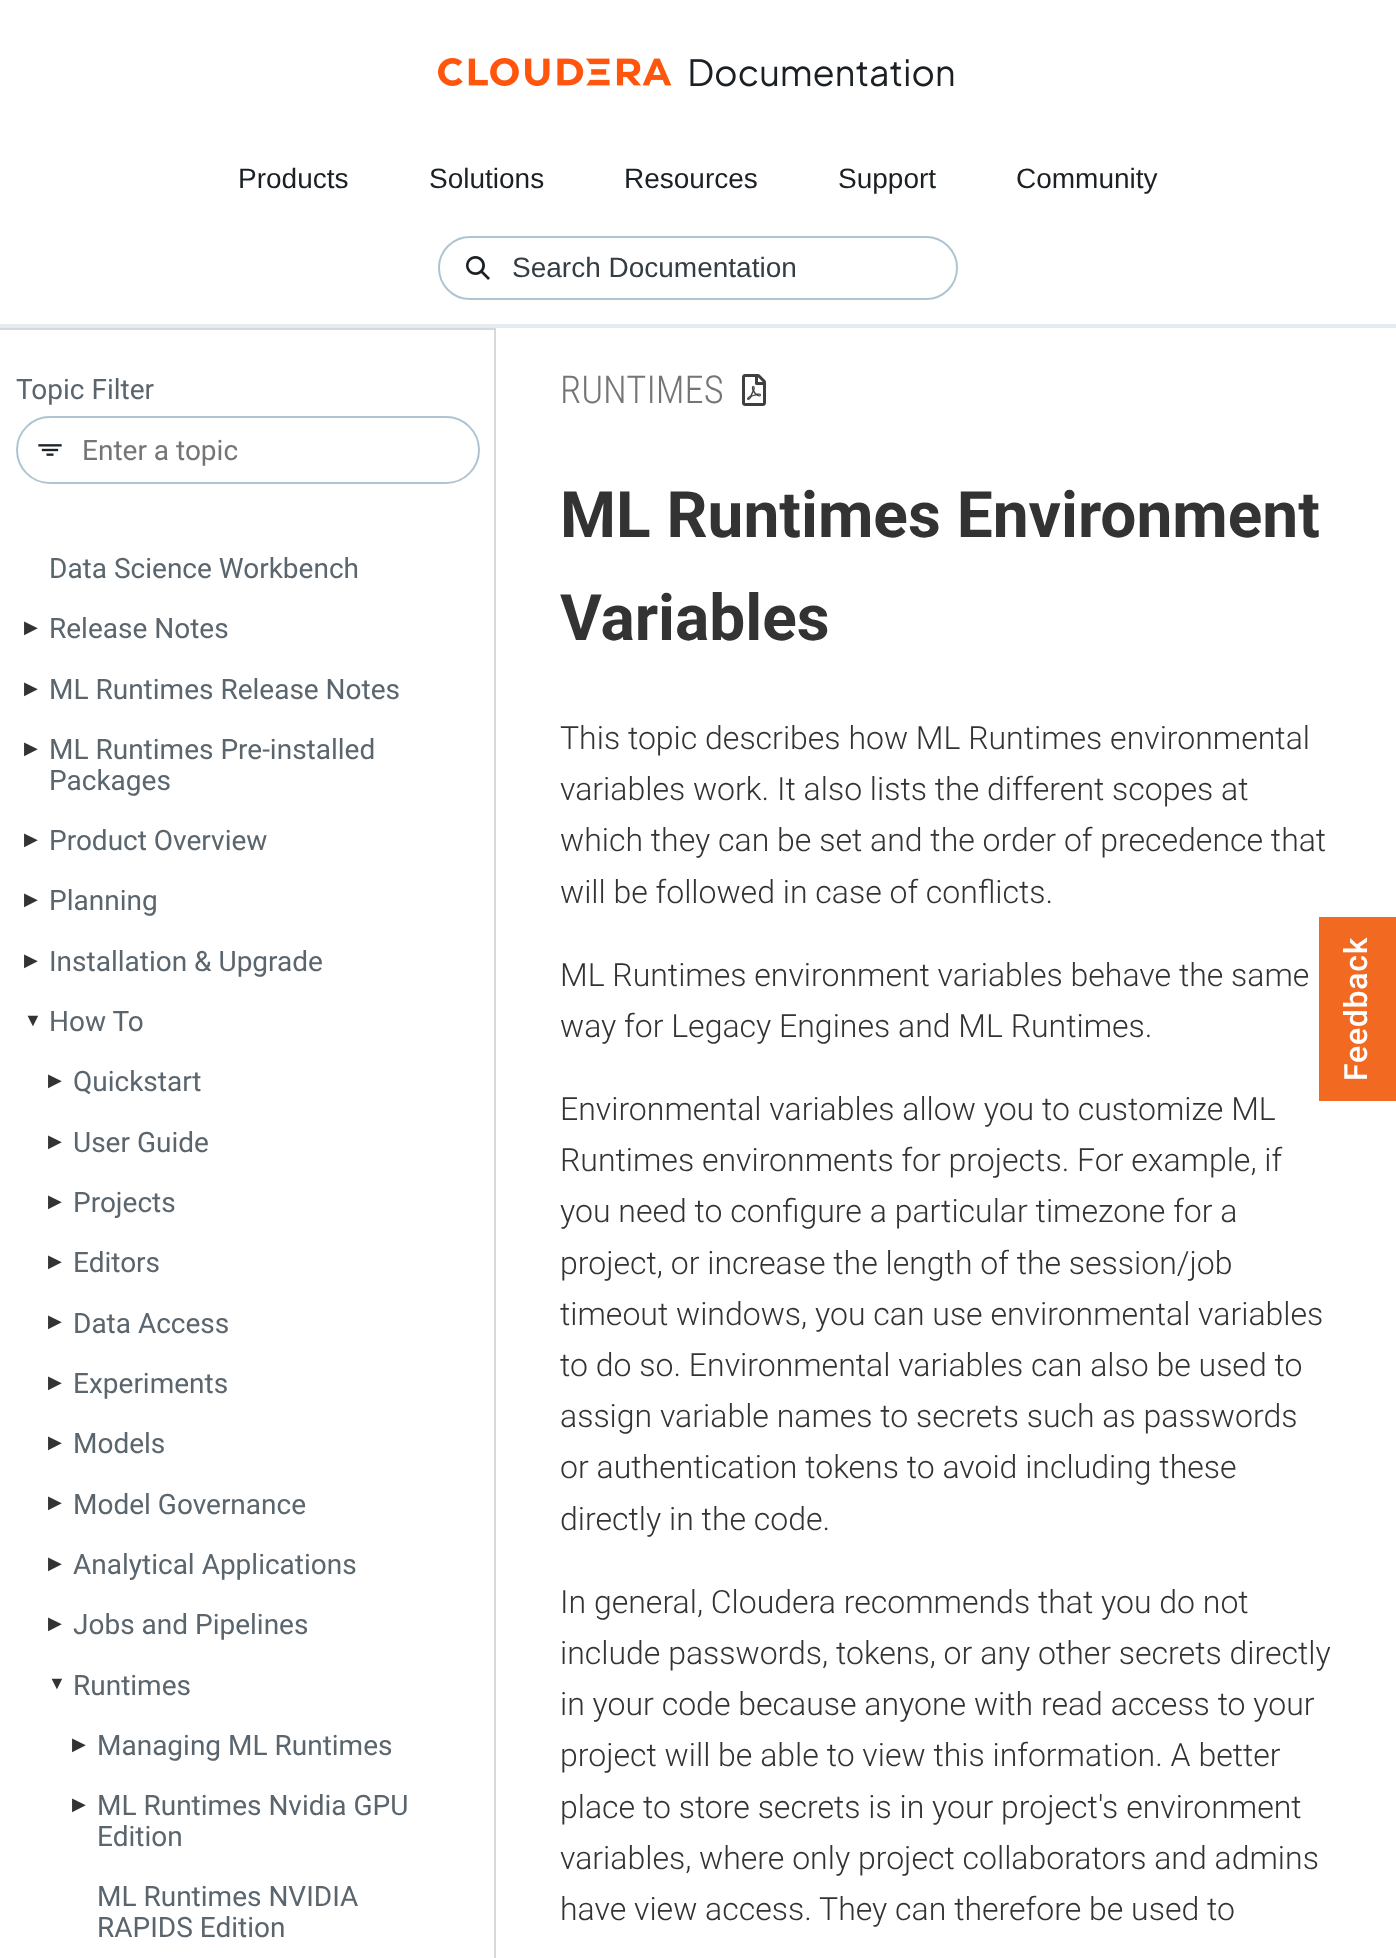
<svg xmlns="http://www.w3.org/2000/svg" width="1396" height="1958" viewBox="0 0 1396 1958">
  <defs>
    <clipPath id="clip1"><rect x="0" y="328" width="496" height="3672"/></clipPath>
  </defs>
  <rect width="100%" height="100%" fill="rgb(255,255,255)"/>
  <rect x="0" y="324" width="1396" height="4" fill="rgb(229,236,241)"/>
  <image x="438" y="58" width="516" height="29" href="pic1.png"/>
  <g font-family="Liberation Sans" font-size="28" fill="rgb(26,32,36)">
    <text x="238" y="188">Products</text>
    <text x="429" y="188">Solutions</text>
    <text x="624" y="188">Resources</text>
    <text x="838" y="188">Support</text>
    <text x="1016" y="188">Community</text>
  </g>
  <rect x="439" y="237" width="518" height="62" rx="31" fill="none" stroke="rgb(175,196,210)" stroke-width="2"/>
  <image x="466" y="256" width="24" height="24" href="pic2.png"/>
  <text x="512" y="277" font-family="Liberation Sans" font-size="28" fill="rgb(51,61,67)">Search Documentation</text>
  <g clip-path="url(#clip1)">
    <path d="M-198 130H694V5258H-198ZM-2 330H494V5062H-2Z" fill="rgb(214,216,219)" fill-rule="evenodd"/>
  </g>
  <text x="16" y="399" font-family="Roboto" font-size="28" fill="rgb(90,101,109)">Topic Filter</text>
  <rect x="17" y="417" width="462" height="66" rx="33" fill="none" stroke="rgb(175,196,210)" stroke-width="2"/>
  <image x="38" y="444" width="24" height="12" href="pic3.png"/>
  <text x="82" y="460" font-family="Roboto" font-size="28" fill="rgb(117,117,117)">Enter a topic</text>
  <text x="49" y="578" font-family="Roboto" font-size="28" fill="rgb(90,101,109)">Data Science Workbench</text>
  <text x="24" y="633" font-family="DejaVu Sans" font-size="18" fill="rgb(51,51,51)">▶︎</text>
  <text x="49" y="638" font-family="Roboto" font-size="28" fill="rgb(90,101,109)">Release Notes</text>
  <text x="24" y="694" font-family="DejaVu Sans" font-size="18" fill="rgb(51,51,51)">▶︎</text>
  <text x="49" y="699" font-family="Roboto" font-size="28" fill="rgb(90,101,109)">ML Runtimes Release Notes</text>
  <text x="24" y="754" font-family="DejaVu Sans" font-size="18" fill="rgb(51,51,51)">▶︎</text>
  <g font-family="Roboto" font-size="28" fill="rgb(90,101,109)">
    <text>
      <tspan x="49" y="759">ML Runtimes Pre-installed</tspan>
      <tspan x="49" y="790">Packages</tspan>
    </text>
  </g>
  <text x="24" y="845" font-family="DejaVu Sans" font-size="18" fill="rgb(51,51,51)">▶︎</text>
  <text x="49" y="850" font-family="Roboto" font-size="28" fill="rgb(90,101,109)">Product Overview</text>
  <text x="24" y="905" font-family="DejaVu Sans" font-size="18" fill="rgb(51,51,51)">▶︎</text>
  <text x="49" y="910" font-family="Roboto" font-size="28" fill="rgb(90,101,109)">Planning</text>
  <text x="24" y="966" font-family="DejaVu Sans" font-size="18" fill="rgb(51,51,51)">▶︎</text>
  <text x="49" y="971" font-family="Roboto" font-size="28" fill="rgb(90,101,109)">Installation &amp; Upgrade</text>
  <text x="24" y="1026" font-family="Liberation Sans" font-size="18" fill="rgb(51,51,51)">▼</text>
  <text x="49" y="1031" font-family="Roboto" font-size="28" fill="rgb(90,101,109)">How To</text>
  <text x="48" y="1086" font-family="DejaVu Sans" font-size="18" fill="rgb(51,51,51)">▶︎</text>
  <text x="73" y="1091" font-family="Roboto" font-size="28" fill="rgb(90,101,109)">Quickstart</text>
  <text x="48" y="1147" font-family="DejaVu Sans" font-size="18" fill="rgb(51,51,51)">▶︎</text>
  <text x="73" y="1152" font-family="Roboto" font-size="28" fill="rgb(90,101,109)">User Guide</text>
  <text x="48" y="1207" font-family="DejaVu Sans" font-size="18" fill="rgb(51,51,51)">▶︎</text>
  <text x="73" y="1212" font-family="Roboto" font-size="28" fill="rgb(90,101,109)">Projects</text>
  <text x="48" y="1267" font-family="DejaVu Sans" font-size="18" fill="rgb(51,51,51)">▶︎</text>
  <text x="73" y="1272" font-family="Roboto" font-size="28" fill="rgb(90,101,109)">Editors</text>
  <text x="48" y="1327" font-family="DejaVu Sans" font-size="18" fill="rgb(51,51,51)">▶︎</text>
  <text x="73" y="1333" font-family="Roboto" font-size="28" fill="rgb(90,101,109)">Data Access</text>
  <text x="48" y="1388" font-family="DejaVu Sans" font-size="18" fill="rgb(51,51,51)">▶︎</text>
  <text x="73" y="1393" font-family="Roboto" font-size="28" fill="rgb(90,101,109)">Experiments</text>
  <text x="48" y="1448" font-family="DejaVu Sans" font-size="18" fill="rgb(51,51,51)">▶︎</text>
  <text x="73" y="1453" font-family="Roboto" font-size="28" fill="rgb(90,101,109)">Models</text>
  <text x="48" y="1508" font-family="DejaVu Sans" font-size="18" fill="rgb(51,51,51)">▶︎</text>
  <text x="73" y="1514" font-family="Roboto" font-size="28" fill="rgb(90,101,109)">Model Governance</text>
  <text x="48" y="1569" font-family="DejaVu Sans" font-size="18" fill="rgb(51,51,51)">▶︎</text>
  <text x="73" y="1574" font-family="Roboto" font-size="28" fill="rgb(90,101,109)">Analytical Applications</text>
  <text x="48" y="1629" font-family="DejaVu Sans" font-size="18" fill="rgb(51,51,51)">▶︎</text>
  <text x="73" y="1634" font-family="Roboto" font-size="28" fill="rgb(90,101,109)">Jobs and Pipelines</text>
  <text x="48" y="1689" font-family="Liberation Sans" font-size="18" fill="rgb(51,51,51)">▼</text>
  <text x="73" y="1695" font-family="Roboto" font-size="28" fill="rgb(90,101,109)">Runtimes</text>
  <text x="72" y="1750" font-family="DejaVu Sans" font-size="18" fill="rgb(51,51,51)">▶︎</text>
  <text x="97" y="1755" font-family="Roboto" font-size="28" fill="rgb(90,101,109)">Managing ML Runtimes</text>
  <text x="72" y="1810" font-family="DejaVu Sans" font-size="18" fill="rgb(51,51,51)">▶︎</text>
  <g font-family="Roboto" font-size="28" fill="rgb(90,101,109)">
    <text>
      <tspan x="97" y="1815">ML Runtimes Nvidia GPU</tspan>
      <tspan x="97" y="1846">Edition</tspan>
    </text>
    <text>
      <tspan x="97" y="1906">ML Runtimes NVIDIA</tspan>
      <tspan x="97" y="1937">RAPIDS Edition</tspan>
    </text>
  </g>
  <text x="560" y="403" font-family="Roboto Condensed" font-size="38.5" font-weight="300" fill="rgb(117,117,117)">RUNTIMES</text>
  <image x="742" y="374" width="24" height="32" href="pic4.png"/>
  <g font-family="Roboto" font-size="64" font-weight="bold" fill="rgb(51,51,51)">
    <text>
      <tspan x="560" y="537">ML Runtimes Environment</tspan>
      <tspan x="560" y="640">Variables</tspan>
    </text>
  </g>
  <g font-family="Roboto" font-size="32" font-weight="300" fill="rgb(51,51,51)">
    <text>
      <tspan x="560" y="749">This topic describes how ML Runtimes environmental</tspan>
      <tspan x="560" y="800">variables work. It also lists the different scopes at</tspan>
      <tspan x="560" y="851">which they can be set and the order of precedence that</tspan>
      <tspan x="560" y="903">will be followed in case of conflicts.</tspan>
    </text>
    <text>
      <tspan x="560" y="986">ML Runtimes environment variables behave the same</tspan>
      <tspan x="560" y="1037">way for Legacy Engines and ML Runtimes.</tspan>
    </text>
    <text>
      <tspan x="560" y="1120">Environmental variables allow you to customize ML</tspan>
      <tspan x="560" y="1171">Runtimes environments for projects. For example, if</tspan>
      <tspan x="560" y="1222">you need to configure a particular timezone for a</tspan>
      <tspan x="560" y="1274">project, or increase the length of the session/job</tspan>
      <tspan x="560" y="1325">timeout windows, you can use environmental variables</tspan>
      <tspan x="560" y="1376">to do so. Environmental variables can also be used to</tspan>
      <tspan x="560" y="1427">assign variable names to secrets such as passwords</tspan>
      <tspan x="560" y="1478">or authentication tokens to avoid including these</tspan>
      <tspan x="560" y="1530">directly in the code.</tspan>
    </text>
    <text>
      <tspan x="560" y="1613">In general, Cloudera recommends that you do not</tspan>
      <tspan x="560" y="1664">include passwords, tokens, or any other secrets directly</tspan>
      <tspan x="560" y="1715">in your code because anyone with read access to your</tspan>
      <tspan x="560" y="1766">project will be able to view this information. A better</tspan>
      <tspan x="560" y="1818">place to store secrets is in your project's environment</tspan>
      <tspan x="560" y="1869">variables, where only project collaborators and admins</tspan>
      <tspan x="560" y="1920">have view access. They can therefore be used to</tspan>
    </text>
  </g>
  <rect x="1319" y="917" width="77" height="184" fill="rgb(242,105,34)"/>
  <text x="1367" y="1081" transform="rotate(-90 1367 1081)" font-family="Roboto" font-size="32" font-weight="500" letter-spacing="0.75" fill="rgb(255,255,255)">Feedback</text>
</svg>
